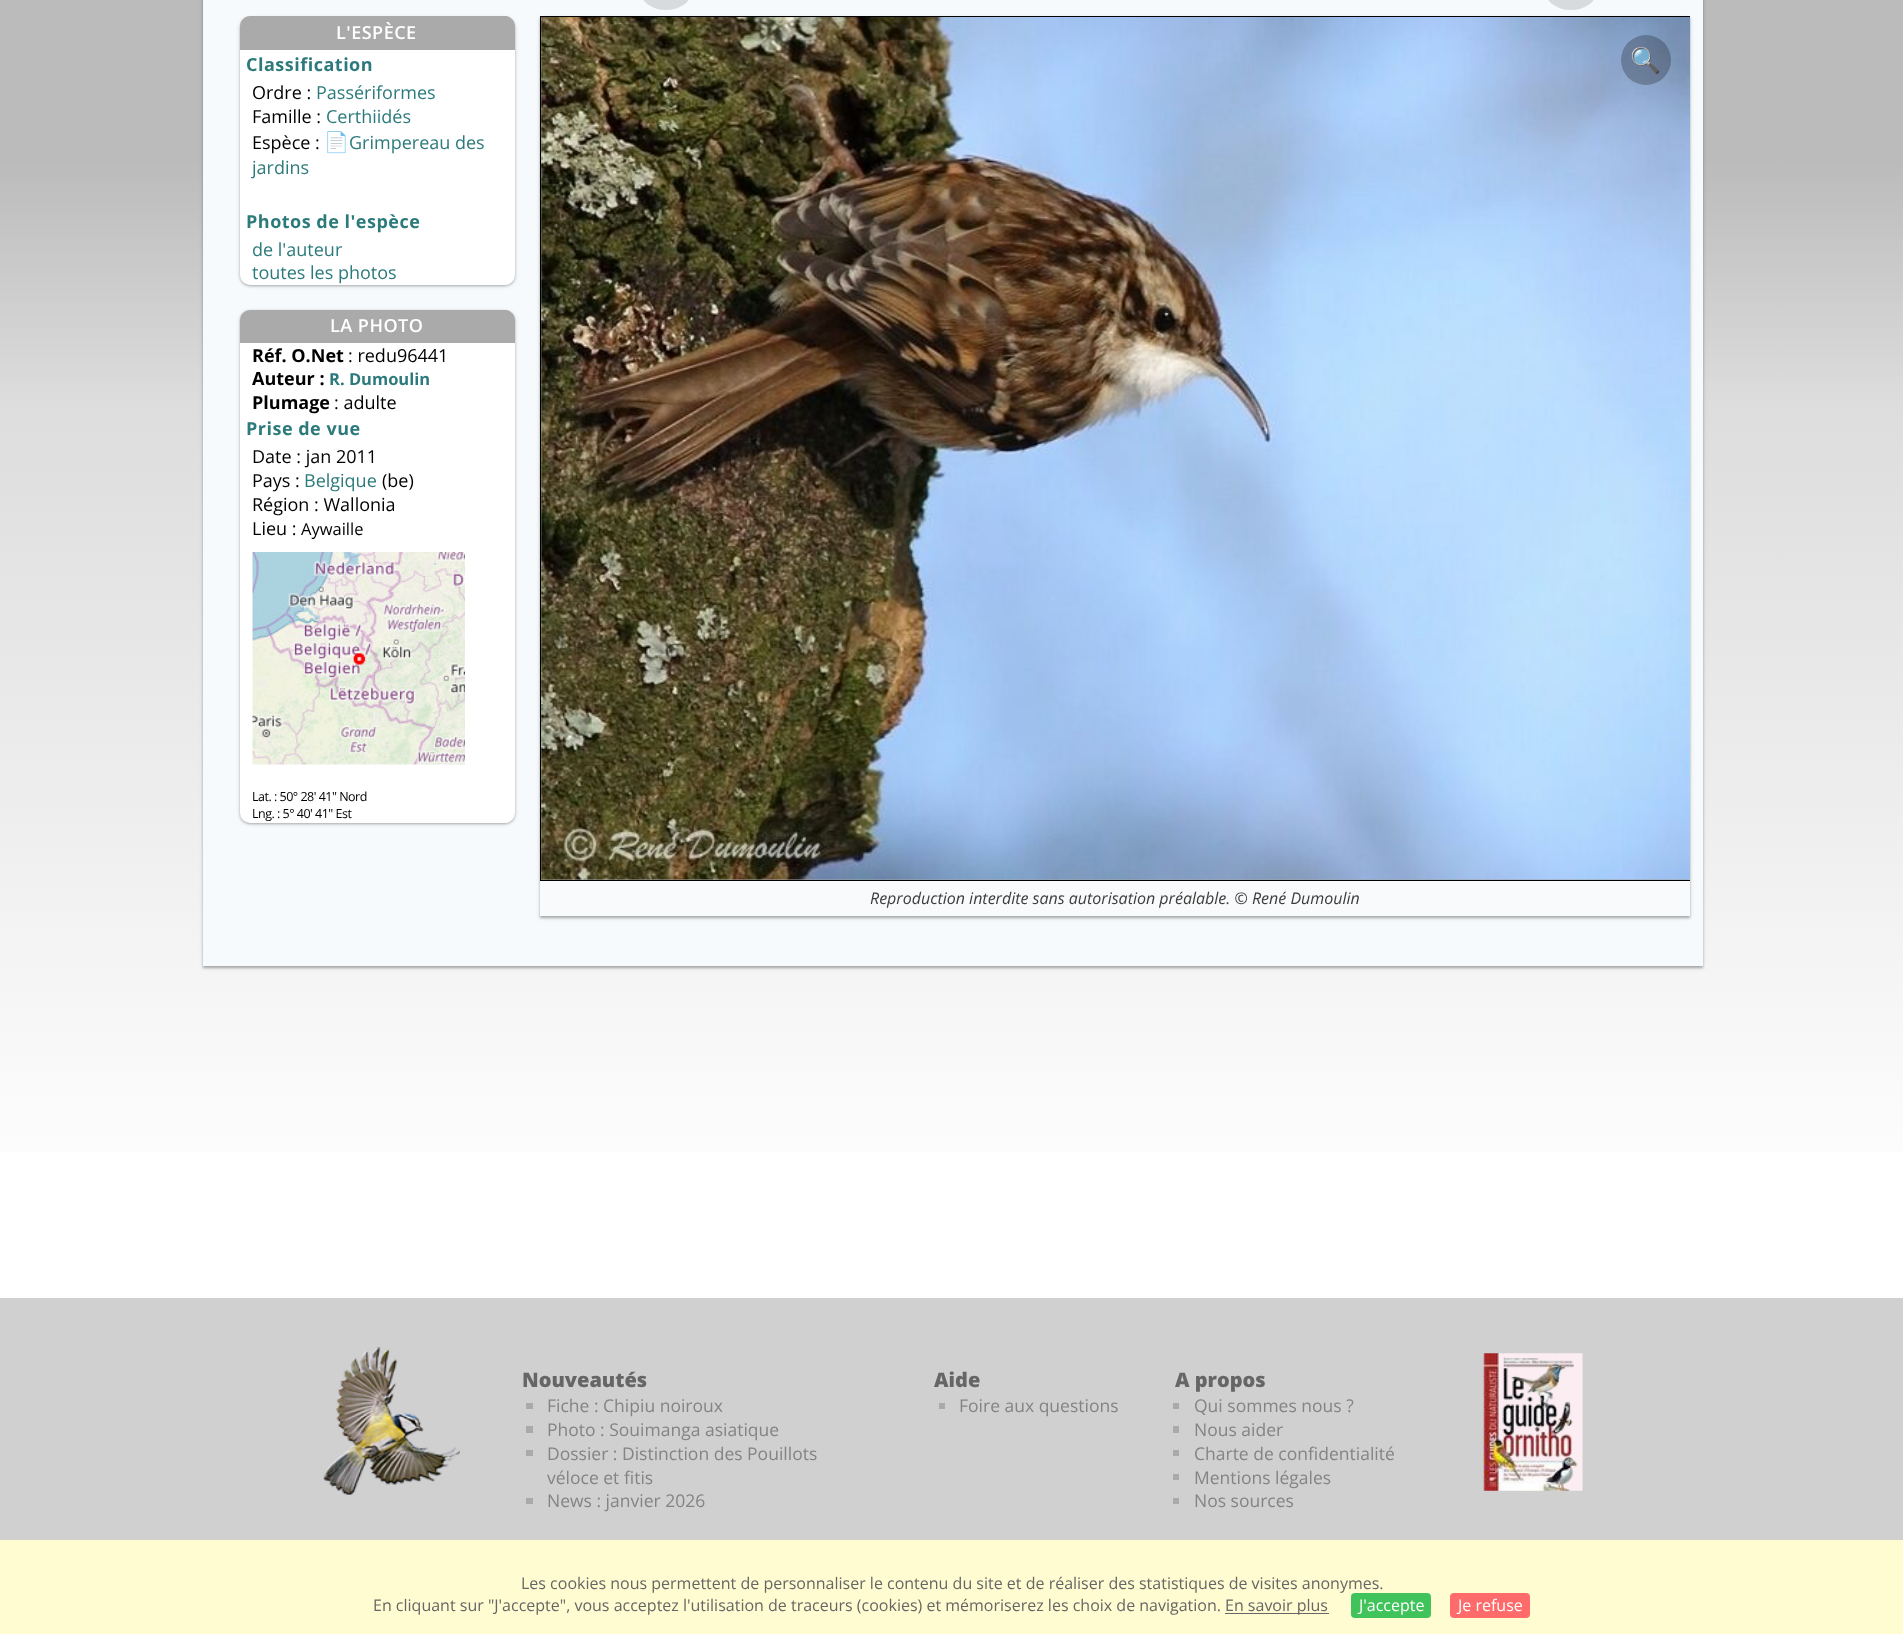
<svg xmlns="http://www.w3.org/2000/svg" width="1903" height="1634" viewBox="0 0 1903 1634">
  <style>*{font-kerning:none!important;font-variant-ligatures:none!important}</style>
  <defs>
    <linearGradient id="g1" gradientUnits="userSpaceOnUse" x1="952" y1="-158" x2="952" y2="1364"><stop offset="0" stop-color="rgb(187,187,187)"/><stop offset="0.21" stop-color="rgb(187,187,187)"/><stop offset="0.37" stop-color="rgb(221,221,221)"/><stop offset="0.9" stop-color="rgb(255,255,255)"/><stop offset="1" stop-color="rgb(255,255,255)"/></linearGradient>
    <clipPath id="clip1"><rect x="540" y="16" width="1150" height="900"/></clipPath>
  </defs>
  <rect width="100%" height="100%" fill="rgb(255,255,255)"/>
  <rect x="0" y="0" width="1903" height="1152" fill="url(#g1)"/>
  <rect x="203" y="-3" width="1500" height="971" fill="rgba(0,0,0,0.24)" filter="blur(1px)"/>
  <rect x="203" y="-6" width="1500" height="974" fill="rgba(0,0,0,0.12)" filter="blur(2px)"/>
  <rect x="203" y="0" width="1500" height="966" fill="rgb(247,250,252)"/>
  <rect x="240" y="18" width="275" height="268" rx="10" fill="rgba(0,0,0,0.24)" filter="blur(1px)"/>
  <rect x="240" y="18" width="275" height="268" rx="10" fill="rgba(0,0,0,0.12)" filter="blur(2px)"/>
  <rect x="240" y="16" width="275" height="269" rx="10" fill="rgb(255,255,255)"/>
  <path d="M250 16H505C510.5 16 515 20.5 515 26V50H240V26C240 20.5 244.5 16 250 16Z" fill="rgb(170,170,170)"/>
  <text x="336" y="39" font-family="Open Sans" font-size="18" font-weight="600" letter-spacing="0.5" fill="rgb(255,255,255)">L'ESPÈCE</text>
  <text x="246" y="71" font-family="Open Sans" font-size="18" font-weight="bold" letter-spacing="0.5" fill="rgb(44,122,123)">Classification</text>
  <text x="252" y="99" font-family="Open Sans" font-size="18" fill="rgb(0,0,0)">Ordre :</text>
  <text x="316" y="99" font-family="Open Sans" font-size="18" fill="rgb(44,122,123)">Passériformes</text>
  <text x="252" y="123" font-family="Open Sans" font-size="18" fill="rgb(0,0,0)">Famille :</text>
  <text x="326" y="123" font-family="Open Sans" font-size="18" fill="rgb(44,122,123)">Certhiidés</text>
  <text x="252" y="149" font-family="Open Sans" font-size="18" fill="rgb(0,0,0)">Espèce :</text>
  <text x="324" y="149" font-family="Noto Color Emoji" font-size="20" fill="rgb(44,122,123)">📄</text>
  <g font-family="Open Sans" font-size="18" fill="rgb(44,122,123)">
    <text x="349" y="149">Grimpereau des</text>
    <text x="252" y="174">jardins</text>
  </g>
  <text x="246" y="228" font-family="Open Sans" font-size="18" font-weight="bold" letter-spacing="0.5" fill="rgb(44,122,123)">Photos de l'espèce</text>
  <g font-family="Open Sans" font-size="18" fill="rgb(44,122,123)">
    <text>
      <tspan x="252" y="256">de l'auteur</tspan>
      <tspan x="252" y="279">toutes les photos</tspan>
    </text>
  </g>
  <rect x="240" y="311" width="275" height="513" rx="10" fill="rgba(0,0,0,0.24)" filter="blur(1px)"/>
  <rect x="240" y="311" width="275" height="513" rx="10" fill="rgba(0,0,0,0.12)" filter="blur(2px)"/>
  <rect x="240" y="310" width="275" height="513" rx="10" fill="rgb(255,255,255)"/>
  <path d="M250 310H505C510.5 310 515 314.5 515 320V343H240V320C240 314.5 244.5 310 250 310Z" fill="rgb(170,170,170)"/>
  <text x="330" y="332" font-family="Open Sans" font-size="18" font-weight="600" letter-spacing="0.5" fill="rgb(255,255,255)">LA PHOTO</text>
  <text x="252" y="362" font-family="Open Sans" font-size="18" font-weight="bold" fill="rgb(0,0,0)">Réf. O.Net</text>
  <text x="348" y="362" font-family="Open Sans" font-size="18" fill="rgb(0,0,0)">: redu96441</text>
  <text x="252" y="385" font-family="Open Sans" font-size="18" font-weight="bold" fill="rgb(0,0,0)">Auteur :</text>
  <text x="329" y="385" font-family="Open Sans" font-size="16.5" font-weight="bold" fill="rgb(44,122,123)">R. Dumoulin</text>
  <text x="252" y="409" font-family="Open Sans" font-size="18" font-weight="bold" fill="rgb(0,0,0)">Plumage</text>
  <text x="334" y="409" font-family="Open Sans" font-size="18" fill="rgb(0,0,0)">: adulte</text>
  <text x="246" y="435" font-family="Open Sans" font-size="18" font-weight="bold" letter-spacing="0.5" fill="rgb(44,122,123)">Prise de vue</text>
  <g font-family="Open Sans" font-size="18" fill="rgb(0,0,0)">
    <text>
      <tspan x="252" y="463">Date : jan 2011</tspan>
      <tspan x="252" y="487">Pays :</tspan>
    </text>
  </g>
  <text x="304" y="487" font-family="Open Sans" font-size="18" fill="rgb(44,122,123)">Belgique</text>
  <g font-family="Open Sans" font-size="18" fill="rgb(0,0,0)">
    <text x="382" y="487">(be)</text>
    <text>
      <tspan x="252" y="511">Région : Wallonia</tspan>
      <tspan x="252" y="535">Lieu :</tspan>
    </text>
  </g>
  <text x="301" y="535" font-family="Open Sans" font-size="16.5" fill="rgb(0,0,0)">Aywaille</text>
  <image x="252" y="552" width="213" height="213" href="pic1.png"/>
  <g font-family="Open Sans" font-size="12.5" letter-spacing="-0.5" fill="rgb(0,0,0)">
    <text>
      <tspan x="252" y="801">Lat. : 50° 28' 41'' Nord</tspan>
      <tspan x="252" y="818">Lng. : 5° 40' 41'' Est</tspan>
    </text>
  </g>
  <rect x="641" y="-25" width="50" height="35" rx="25" fill="rgb(216,219,221)"/>
  <rect x="1546" y="-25" width="50" height="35" rx="25" fill="rgb(216,219,221)"/>
  <rect x="540" y="18" width="1150" height="900" fill="rgba(0,0,0,0.24)" filter="blur(1px)"/>
  <rect x="540" y="18" width="1150" height="900" fill="rgba(0,0,0,0.12)" filter="blur(2px)"/>
  <g clip-path="url(#clip1)">
    <rect x="540.5" y="16.5" width="1152" height="864" fill="none" stroke="rgb(0,0,0)"/>
  </g>
  <image x="541" y="17" width="1149" height="863" href="pic2.png"/>
  <circle cx="1646" cy="60" r="25" fill="rgba(0,0,0,0.24)"/>
  <text x="1630" y="69" font-family="Noto Color Emoji" font-size="25" fill="rgb(164,175,192)">🔍</text>
  <rect x="540" y="881" width="1150" height="35" fill="rgb(249,250,251)"/>
  <text x="870" y="904" font-family="Open Sans" font-size="16" font-style="italic" fill="rgb(61,61,61)">Reproduction interdite sans autorisation préalable. © René Dumoulin</text>
  <rect x="0" y="1298" width="1903" height="242" fill="rgb(208,208,208)"/>
  <image x="323" y="1347" width="137" height="148" href="pic3.png"/>
  <text x="522" y="1387" font-family="Open Sans" font-size="20" font-weight="800" fill="rgb(102,102,102)">Nouveautés</text>
  <rect x="526" y="1403" width="7" height="6" fill="rgb(170,170,170)"/>
  <text x="547" y="1412" font-family="Open Sans" font-size="17.5" fill="rgb(132,132,132)">Fiche : Chipiu noiroux</text>
  <rect x="526" y="1426" width="7" height="7" fill="rgb(170,170,170)"/>
  <text x="547" y="1436" font-family="Open Sans" font-size="17.5" fill="rgb(132,132,132)">Photo : Souimanga asiatique</text>
  <rect x="526" y="1450" width="7" height="6" fill="rgb(170,170,170)"/>
  <g font-family="Open Sans" font-size="17.5" fill="rgb(132,132,132)">
    <text>
      <tspan x="547" y="1460">Dossier : Distinction des Pouillots</tspan>
      <tspan x="547" y="1484">véloce et fitis</tspan>
    </text>
  </g>
  <rect x="526" y="1498" width="7" height="6" fill="rgb(170,170,170)"/>
  <text x="547" y="1507" font-family="Open Sans" font-size="17.5" fill="rgb(132,132,132)">News : janvier 2026</text>
  <text x="934" y="1387" font-family="Open Sans" font-size="20" font-weight="800" fill="rgb(102,102,102)">Aide</text>
  <rect x="939" y="1403" width="6" height="6" fill="rgb(170,170,170)"/>
  <text x="959" y="1412" font-family="Open Sans" font-size="17.5" fill="rgb(132,132,132)">Foire aux questions</text>
  <text x="1175" y="1387" font-family="Open Sans" font-size="20" font-weight="800" fill="rgb(102,102,102)">A propos</text>
  <rect x="1173" y="1403" width="6" height="6" fill="rgb(170,170,170)"/>
  <text x="1194" y="1412" font-family="Open Sans" font-size="17.5" fill="rgb(132,132,132)">Qui sommes nous ?</text>
  <rect x="1173" y="1426" width="6" height="7" fill="rgb(170,170,170)"/>
  <text x="1194" y="1436" font-family="Open Sans" font-size="17.5" fill="rgb(132,132,132)">Nous aider</text>
  <rect x="1173" y="1450" width="6" height="6" fill="rgb(170,170,170)"/>
  <text x="1194" y="1460" font-family="Open Sans" font-size="17.5" fill="rgb(132,132,132)">Charte de confidentialité</text>
  <rect x="1173" y="1474" width="6" height="6" fill="rgb(170,170,170)"/>
  <text x="1194" y="1484" font-family="Open Sans" font-size="17.5" fill="rgb(132,132,132)">Mentions légales</text>
  <rect x="1173" y="1498" width="6" height="6" fill="rgb(170,170,170)"/>
  <text x="1194" y="1507" font-family="Open Sans" font-size="17.5" fill="rgb(132,132,132)">Nos sources</text>
  <image x="1483" y="1353" width="100" height="138" href="pic4.png"/>
  <rect x="0" y="1540" width="1903" height="94" fill="rgb(255,252,209)"/>
  <g font-family="Open Sans" font-size="16" fill="rgb(102,102,102)">
    <text x="521" y="1589">Les cookies nous permettent de personnaliser le contenu du site et de réaliser des statistiques de visites anonymes.</text>
    <text x="373" y="1611">En cliquant sur "J'accepte", vous acceptez l'utilisation de traceurs (cookies) et mémoriserez les choix de navigation.</text>
  </g>
  <rect x="1225" y="1613" width="104" height="1" fill="rgb(102,102,102)"/>
  <text x="1225" y="1611" font-family="Open Sans" font-size="16" fill="rgb(102,102,102)">En savoir plus</text>
  <rect x="1351" y="1593" width="80" height="25" rx="4" fill="rgb(63,195,90)"/>
  <text x="1359" y="1611" font-family="Open Sans" font-size="16" fill="rgb(255,255,255)">J'accepte</text>
  <rect x="1450" y="1593" width="80" height="25" rx="4" fill="rgb(255,107,107)"/>
  <text x="1458" y="1611" font-family="Open Sans" font-size="16" fill="rgb(255,255,255)">Je refuse</text>
</svg>
